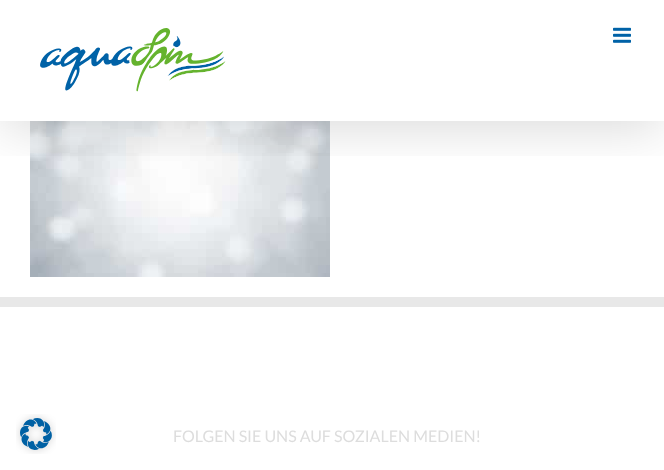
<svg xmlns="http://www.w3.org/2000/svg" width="664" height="470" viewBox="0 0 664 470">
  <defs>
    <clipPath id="clip1"><rect x="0" y="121" width="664" height="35"/></clipPath>
  </defs>
  <rect width="100%" height="100%" fill="rgb(255,255,255)"/>
  <image x="16" y="414" width="40" height="40" href="pic1.png"/>
  <image x="30" y="121" width="300" height="156" href="pic4.png"/>
  <g clip-path="url(#clip1)">
    <rect x="2" y="12" width="660" height="117" fill="rgba(0,0,0,0.14)" filter="blur(25px)"/>
  </g>
  <image x="40" y="28" width="186" height="64" href="pic2.png"/>
  <image x="613" y="27" width="18" height="16" href="pic3.png"/>
  <rect x="0" y="297" width="664" height="10" fill="rgb(232,232,232)"/>
  <text x="173" y="442" font-family="Lato" font-size="16" fill="rgb(221,221,221)">FOLGEN SIE UNS AUF SOZIALEN MEDIEN!</text>
</svg>
